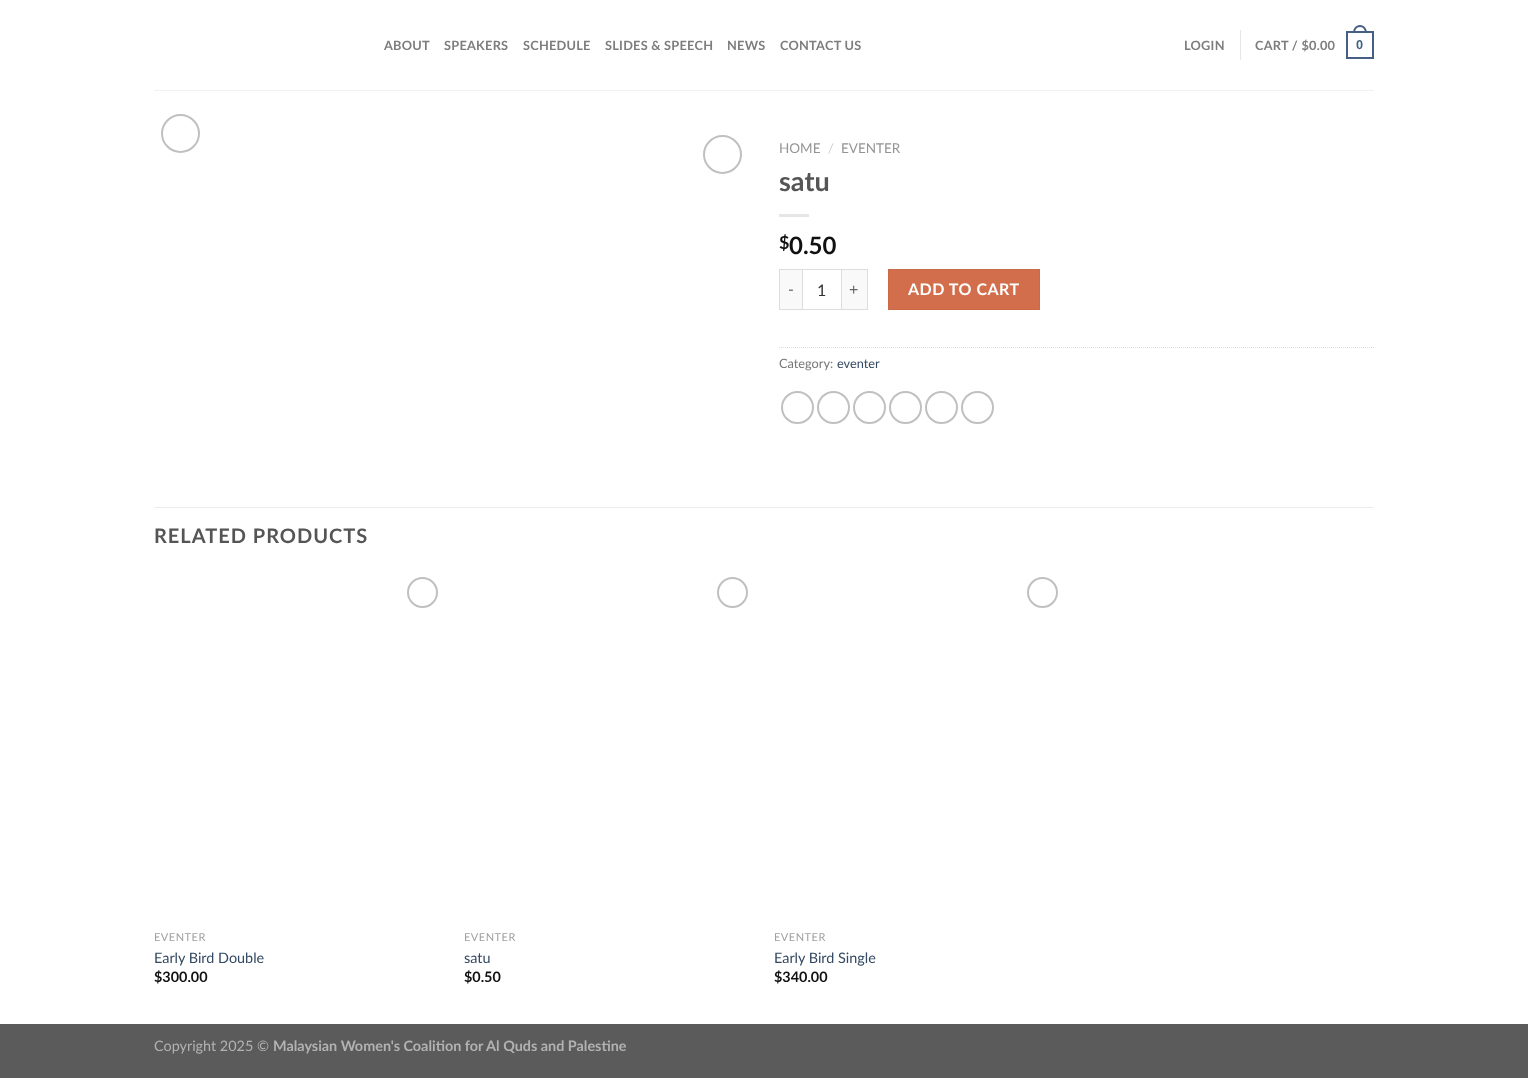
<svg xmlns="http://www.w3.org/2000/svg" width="1528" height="1078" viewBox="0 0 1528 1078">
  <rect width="100%" height="100%" fill="rgb(91,91,91)"/>
  <rect x="0" y="0" width="1528" height="1024" fill="rgb(255,255,255)"/>
  <g font-family="Lato" font-size="12.75" font-weight="bold" letter-spacing="0.25" fill="rgb(125,125,125)">
    <text x="384" y="50">ABOUT</text>
    <text x="444" y="50">SPEAKERS</text>
    <text x="523" y="50">SCHEDULE</text>
    <text x="605" y="50">SLIDES &amp; SPEECH</text>
    <text x="727" y="50">NEWS</text>
    <text x="780" y="50">CONTACT US</text>
    <text x="1184" y="50">LOGIN</text>
  </g>
  <rect x="1240" y="30" width="1" height="30" fill="rgb(230,230,230)"/>
  <text x="1255" y="50" font-family="Lato" font-size="12.75" font-weight="bold" letter-spacing="0.25" fill="rgb(125,125,125)">CART / $0.00</text>
  <rect x="1347" y="32" width="26" height="26" fill="none" stroke="rgb(68,96,132)" stroke-width="2"/>
  <path d="M1360 25C1364.5 25 1367 29 1367 33H1353C1353 29 1355.5 25 1360 25ZM1360 27C1363.5 27 1365 30 1365 33H1355C1355 30 1356.5 27 1360 27Z" fill="rgb(68,96,132)" fill-rule="evenodd"/>
  <text x="1356" y="49" font-family="Liberation Sans" font-size="12.75" font-weight="bold" letter-spacing="0.25" fill="rgb(68,96,132)">0</text>
  <rect x="154" y="90" width="1220" height="1" fill="rgb(241,241,241)"/>
  <circle cx="180.5" cy="133.5" r="18.5" fill="none" stroke="rgb(192,192,192)" stroke-width="2"/>
  <circle cx="722.5" cy="154.5" r="18.5" fill="none" stroke="rgb(192,192,192)" stroke-width="2"/>
  <text x="779" y="153" font-family="Lato" font-size="13.5" fill="rgb(148,148,148)">HOME</text>
  <text x="828" y="153" font-family="Lato" font-size="13.5" font-weight="300" fill="rgb(178,178,178)">/</text>
  <text x="841" y="153" font-family="Lato" font-size="13.5" fill="rgb(148,148,148)">EVENTER</text>
  <text x="779" y="191" font-family="Lato" font-size="27" font-weight="bold" fill="rgb(85,85,85)">satu</text>
  <rect x="779" y="214" width="30" height="3" fill="rgb(230,230,230)"/>
  <text x="779" y="249" font-family="Lato" font-size="18" font-weight="bold" fill="rgb(17,17,17)">$</text>
  <text x="789" y="254" font-family="Lato" font-size="24" font-weight="bold" fill="rgb(17,17,17)">0.50</text>
  <rect x="780" y="270" width="22" height="39" fill="rgb(249,249,249)"/>
  <rect x="779" y="269" width="23" height="1" fill="rgb(221,221,221)"/>
  <rect x="779" y="309" width="23" height="1" fill="rgb(221,221,221)"/>
  <rect x="779" y="269" width="1" height="41" fill="rgb(221,221,221)"/>
  <text x="788" y="295" font-family="Lato" font-size="16" fill="rgb(102,102,102)">-</text>
  <rect x="802.5" y="269.5" width="39" height="40" fill="none" stroke="rgb(221,221,221)"/>
  <text x="817" y="296" font-family="Lato" font-size="16" fill="rgb(51,51,51)">1</text>
  <rect x="842" y="270" width="25" height="39" fill="rgb(249,249,249)"/>
  <rect x="842" y="269" width="26" height="1" fill="rgb(221,221,221)"/>
  <rect x="867" y="269" width="1" height="41" fill="rgb(221,221,221)"/>
  <rect x="842" y="309" width="26" height="1" fill="rgb(221,221,221)"/>
  <text x="849" y="295" font-family="Lato" font-size="16" fill="rgb(102,102,102)">+</text>
  <rect x="888.5" y="269.5" width="151" height="40" fill="rgb(210,110,75)" stroke="rgb(200,105,71)"/>
  <text x="908" y="295" font-family="Lato" font-size="16" font-weight="bold" letter-spacing="0.5" fill="rgb(255,255,255)">ADD TO CART</text>
  <path d="M779 347.5H1374" fill="none" stroke="rgb(221,221,221)" stroke-dasharray="1 1"/>
  <text x="779" y="368" font-family="Lato" font-size="12.75" fill="rgb(119,119,119)">Category:</text>
  <text x="837" y="368" font-family="Lato" font-size="12.75" fill="rgb(51,72,98)">eventer</text>
  <circle cx="797.5" cy="407.5" r="15.5" fill="none" stroke="rgb(192,192,192)" stroke-width="2"/>
  <circle cx="833.5" cy="407.5" r="15.5" fill="none" stroke="rgb(192,192,192)" stroke-width="2"/>
  <circle cx="869.5" cy="407.5" r="15.5" fill="none" stroke="rgb(192,192,192)" stroke-width="2"/>
  <circle cx="905.5" cy="407.5" r="15.5" fill="none" stroke="rgb(192,192,192)" stroke-width="2"/>
  <circle cx="941.5" cy="407.5" r="15.5" fill="none" stroke="rgb(192,192,192)" stroke-width="2"/>
  <circle cx="977.5" cy="407.5" r="15.5" fill="none" stroke="rgb(192,192,192)" stroke-width="2"/>
  <rect x="154" y="507" width="1220" height="1" fill="rgb(236,236,236)"/>
  <text x="154" y="543" font-family="Lato" font-size="20" font-weight="bold" letter-spacing="1" fill="rgb(85,85,85)">RELATED PRODUCTS</text>
  <circle cx="422.5" cy="592.5" r="14.5" fill="none" stroke="rgb(192,192,192)" stroke-width="2"/>
  <text x="154" y="941" font-family="Lato" font-size="11" letter-spacing="0.5" fill="rgb(160,160,160)">EVENTER</text>
  <text x="154" y="963" font-family="Lato" font-size="14.4" fill="rgb(51,72,98)">Early Bird Double</text>
  <text x="154" y="982" font-family="Lato" font-size="14.4" font-weight="bold" fill="rgb(17,17,17)">$300.00</text>
  <circle cx="732.5" cy="592.5" r="14.5" fill="none" stroke="rgb(192,192,192)" stroke-width="2"/>
  <text x="464" y="941" font-family="Lato" font-size="11" letter-spacing="0.5" fill="rgb(160,160,160)">EVENTER</text>
  <text x="464" y="963" font-family="Lato" font-size="14.4" fill="rgb(51,72,98)">satu</text>
  <text x="464" y="982" font-family="Lato" font-size="14.4" font-weight="bold" fill="rgb(17,17,17)">$0.50</text>
  <circle cx="1042.5" cy="592.5" r="14.5" fill="none" stroke="rgb(192,192,192)" stroke-width="2"/>
  <text x="774" y="941" font-family="Lato" font-size="11" letter-spacing="0.5" fill="rgb(160,160,160)">EVENTER</text>
  <text x="774" y="963" font-family="Lato" font-size="14.4" fill="rgb(51,72,98)">Early Bird Single</text>
  <text x="774" y="982" font-family="Lato" font-size="14.4" font-weight="bold" fill="rgb(17,17,17)">$340.00</text>
  <text x="154" y="1051" font-family="Lato" font-size="14.4" fill="rgb(178,178,178)">Copyright 2025 ©</text>
  <text x="273" y="1051" font-family="Lato" font-size="14.4" font-weight="bold" fill="rgb(178,178,178)">Malaysian Women's Coalition for Al Quds and Palestine</text>
</svg>
